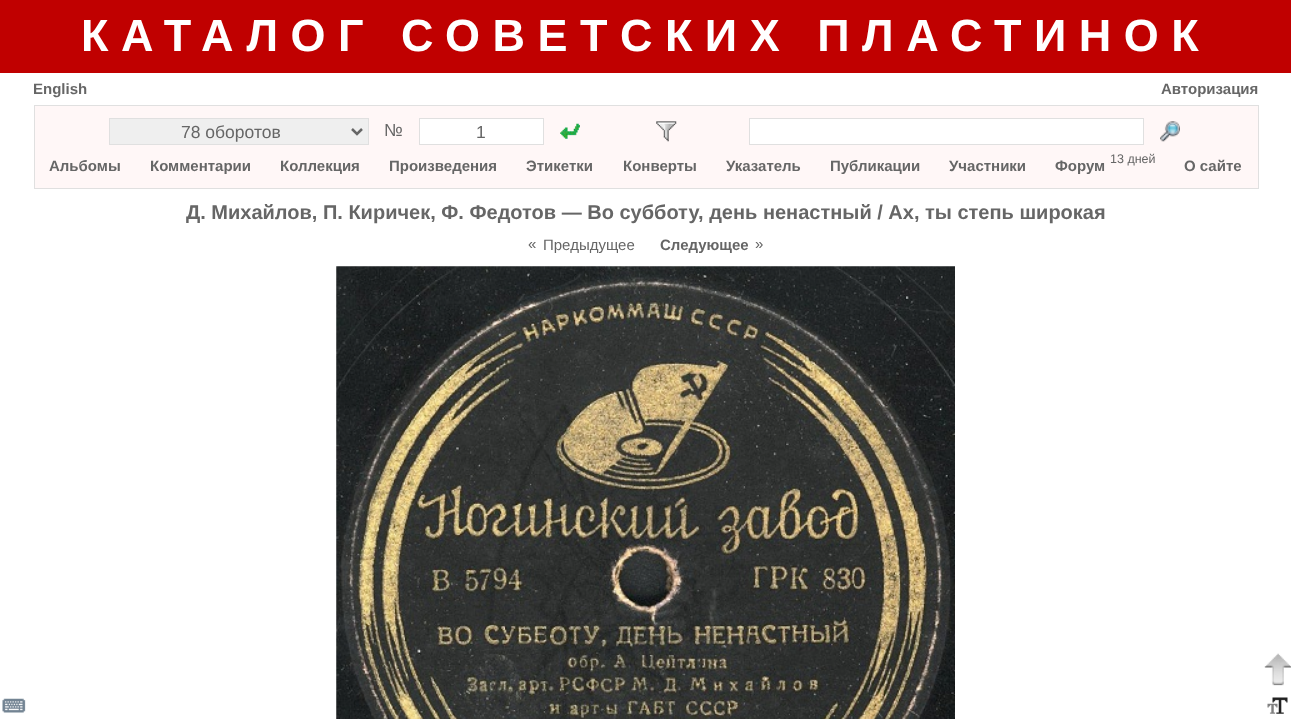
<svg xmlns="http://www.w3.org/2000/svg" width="1291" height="719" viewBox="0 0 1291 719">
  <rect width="100%" height="100%" fill="rgb(255,255,255)"/>
  <rect x="0" y="0" width="1291" height="73" fill="rgb(192,0,0)"/>
  <text x="81" y="51" font-family="Liberation Sans" font-size="45" font-weight="bold" letter-spacing="12.5" fill="rgb(255,255,255)">КАТАЛОГ СОВЕТСКИХ ПЛАСТИНОК</text>
  <g font-family="Liberation Sans" font-size="15" font-weight="bold" fill="rgb(102,102,102)">
    <text x="33" y="94">English</text>
    <text x="1161" y="94">Авторизация</text>
  </g>
  <rect x="34.5" y="105.5" width="1224" height="83" fill="rgb(255,247,247)" stroke="rgb(224,224,224)"/>
  <rect x="109.5" y="118.5" width="259" height="26" fill="rgb(239,239,239)" stroke="rgb(224,224,224)"/>
  <path d="M352 129L357 134L362 129" fill="none" stroke="rgb(102,102,102)" stroke-width="2.5"/>
  <g font-family="Liberation Sans" font-size="17.5" fill="rgb(102,102,102)">
    <text x="181" y="138">78 оборотов</text>
    <text x="384" y="136">№</text>
  </g>
  <rect x="419.5" y="118.5" width="124" height="26" fill="rgb(255,255,255)" stroke="rgb(224,224,224)"/>
  <text x="476" y="138" font-family="Liberation Sans" font-size="17.5" fill="rgb(102,102,102)">1</text>
  <image x="560" y="123" width="20" height="16" href="pic1.png"/>
  <image x="656" y="121" width="21" height="21" href="pic2.png"/>
  <rect x="749.5" y="118.5" width="394" height="26" fill="rgb(255,255,255)" stroke="rgb(224,224,224)"/>
  <image x="1160" y="121" width="20" height="21" href="pic3.png"/>
  <g font-family="Liberation Sans" font-size="15" font-weight="bold" fill="rgb(102,102,102)">
    <text x="49" y="171">Альбомы</text>
    <text x="150" y="171">Комментарии</text>
    <text x="280" y="171">Коллекция</text>
    <text x="389" y="171">Произведения</text>
    <text x="526" y="171">Этикетки</text>
    <text x="623" y="171">Конверты</text>
    <text x="726" y="171">Указатель</text>
    <text x="830" y="171">Публикации</text>
    <text x="949" y="171">Участники</text>
    <text x="1055" y="171">Форум</text>
  </g>
  <text x="1110" y="163" font-family="Liberation Sans" font-size="12.5" fill="rgb(102,102,102)">13 дней</text>
  <text x="1184" y="171" font-family="Liberation Sans" font-size="15" font-weight="bold" fill="rgb(102,102,102)">О сайте</text>
  <text x="186" y="219" font-family="Liberation Sans" font-size="20" font-weight="bold" fill="rgb(102,102,102)">Д. Михайлов, П. Киричек, Ф. Федотов — Во субботу, день ненастный / Ах, ты степь широкая</text>
  <g font-family="Liberation Sans" font-size="15" fill="rgb(102,102,102)">
    <text x="528" y="249">«</text>
    <text x="543" y="250">Предыдущее</text>
  </g>
  <text x="660" y="250" font-family="Liberation Sans" font-size="15" font-weight="bold" fill="rgb(102,102,102)">Следующее</text>
  <text x="755" y="249" font-family="Liberation Sans" font-size="15" fill="rgb(102,102,102)">»</text>
  <image x="336" y="266" width="619" height="453" href="pic4.png"/>
  <image x="1264" y="653" width="27" height="33" href="pic5.png"/>
  <image x="2" y="698" width="24" height="15" href="pic6.png"/>
  <image x="1267" y="697" width="21" height="17" href="pic7.png"/>
</svg>
